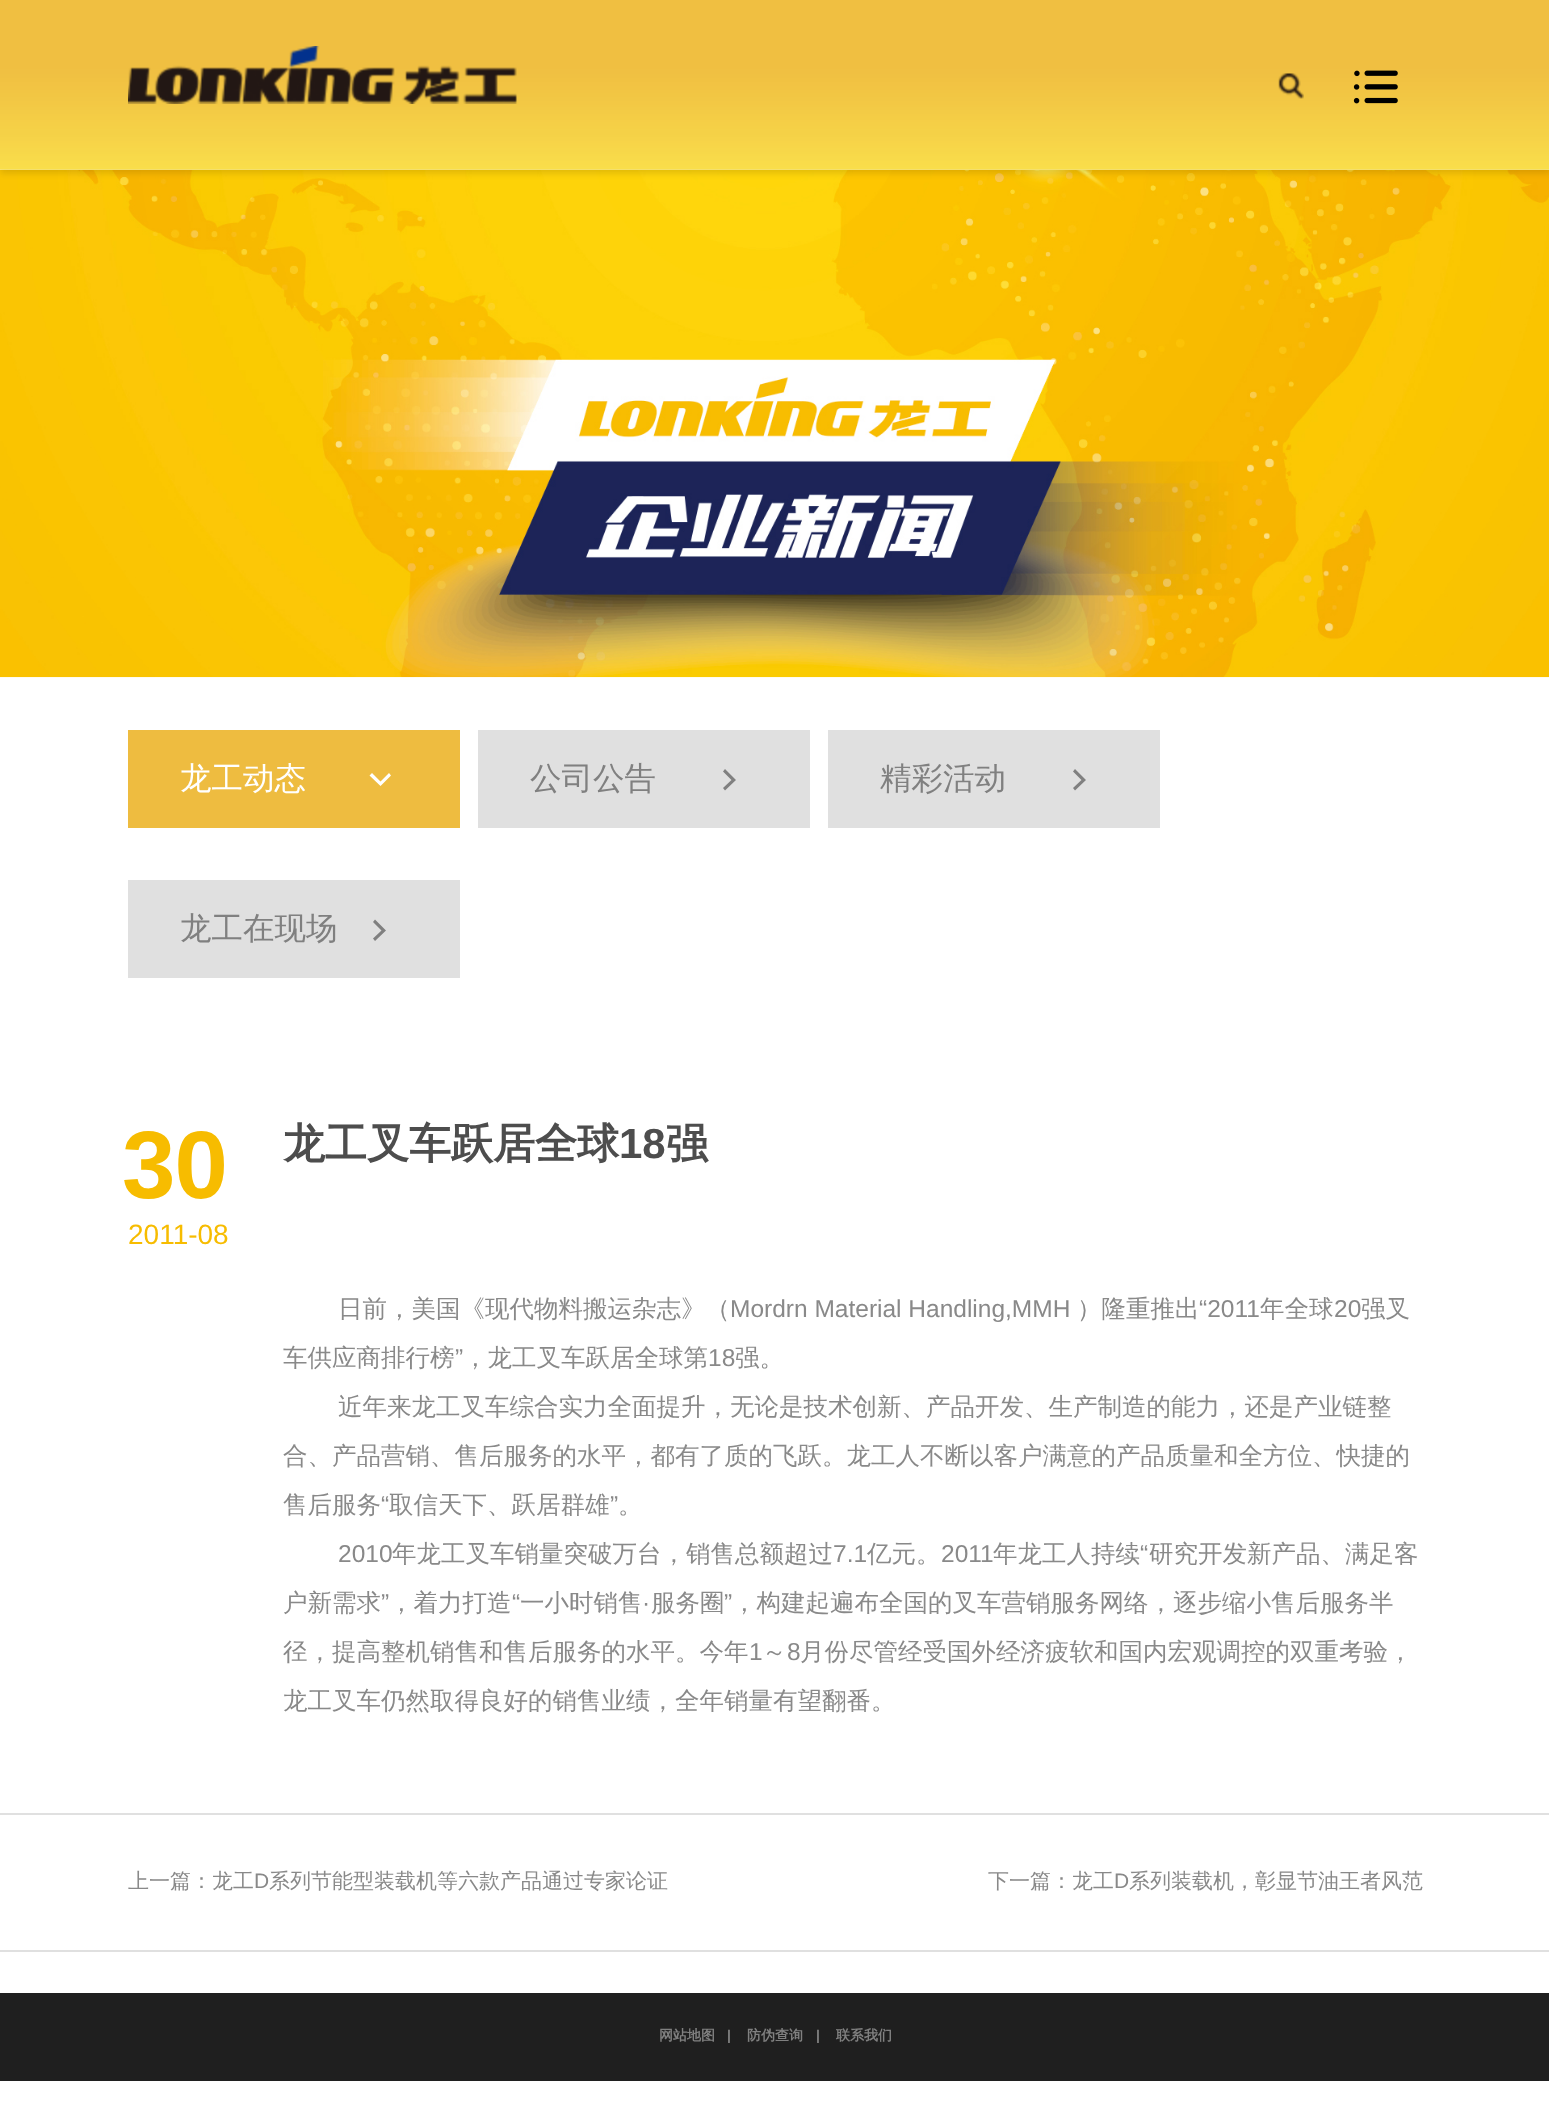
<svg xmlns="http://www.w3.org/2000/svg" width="1549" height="2102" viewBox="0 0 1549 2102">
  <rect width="100%" height="100%" fill="rgb(255,255,255)"/>
  <image x="0" y="169" width="1549" height="509" href="pic5.png"/>
  <rect x="0" y="4" width="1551" height="169" fill="rgba(4,0,0,0.13)" filter="blur(3.5px)"/>
  <image x="0" y="0" width="1549" height="170" href="pic1.png"/>
  <image x="128" y="46" width="389" height="58" href="pic2.png"/>
  <image x="1278" y="73" width="26" height="26" href="pic3.png"/>
  <image x="1353" y="70" width="45" height="34" href="pic4.png"/>
  <rect x="128" y="730" width="332" height="98" fill="rgb(238,188,64)"/>
  <text x="180" y="789" font-family="WenQuanYi Zen Hei" font-size="31.5" font-weight="500" fill="rgb(255,255,255)">龙工动态</text>
  <path d="M380.5 781.5L389 773L391 775.5L380.5 786L369.5 775.5L372 773Z" fill="rgb(255,255,255)"/>
  <rect x="478" y="730" width="332" height="98" fill="rgb(224,224,224)"/>
  <text x="530" y="789" font-family="WenQuanYi Zen Hei" font-size="31.5" font-weight="500" fill="rgb(128,128,128)">公司公告</text>
  <path d="M731.5 780L723 771.5L725 769L736 780L725 790.5L723 788Z" fill="rgb(128,128,128)"/>
  <rect x="828" y="730" width="332" height="98" fill="rgb(224,224,224)"/>
  <text x="880" y="789" font-family="WenQuanYi Zen Hei" font-size="31.5" font-weight="500" fill="rgb(128,128,128)">精彩活动</text>
  <path d="M1081.5 780L1073 771.5L1075 769L1086 780L1075 790.5L1073 788Z" fill="rgb(128,128,128)"/>
  <rect x="128" y="880" width="332" height="98" fill="rgb(224,224,224)"/>
  <text x="180" y="939" font-family="WenQuanYi Zen Hei" font-size="31.5" font-weight="500" fill="rgb(128,128,128)">龙工在现场</text>
  <path d="M381.5 930.5L373 922L375 919.5L386 930.5L375 941L373 938.5Z" fill="rgb(128,128,128)"/>
  <text x="122" y="1198" font-family="Liberation Sans" font-size="96" font-weight="bold" letter-spacing="-1" fill="rgb(247,188,0)">30</text>
  <text x="128" y="1244" font-family="Liberation Sans" font-size="28" fill="rgb(247,188,0)">2011-08</text>
  <text x="283" y="1158" font-family="WenQuanYi Zen Hei" font-size="42" font-weight="bold" fill="rgb(77,77,77)">龙工叉车跃居全球</text>
  <text x="619" y="1158" font-family="Liberation Sans" font-size="42" font-weight="bold" fill="rgb(77,77,77)">18</text>
  <text x="666" y="1158" font-family="WenQuanYi Zen Hei" font-size="42" font-weight="bold" fill="rgb(77,77,77)">强</text>
  <text x="338" y="1317" font-family="WenQuanYi Zen Hei" font-size="24.5" font-weight="500" fill="rgb(137,137,137)">日前，美国《现代物料搬运杂志》（</text>
  <text x="730" y="1317" font-family="Liberation Sans" font-size="24.5" fill="rgb(137,137,137)">Mordrn Material Handling,MMH</text>
  <text x="1077" y="1317" font-family="WenQuanYi Zen Hei" font-size="24.5" font-weight="500" fill="rgb(137,137,137)">）隆重推出</text>
  <text x="1199" y="1317" font-family="Liberation Sans" font-size="24.5" fill="rgb(137,137,137)">“2011</text>
  <text x="1260" y="1317" font-family="WenQuanYi Zen Hei" font-size="24.5" font-weight="500" fill="rgb(137,137,137)">年全球</text>
  <text x="1334" y="1317" font-family="Liberation Sans" font-size="24.5" fill="rgb(137,137,137)">20</text>
  <g font-family="WenQuanYi Zen Hei" font-size="24.5" font-weight="500" fill="rgb(137,137,137)">
    <text x="1361" y="1317">强叉</text>
    <text x="283" y="1366">车供应商排行榜</text>
  </g>
  <text x="455" y="1366" font-family="Liberation Sans" font-size="24.5" fill="rgb(137,137,137)">”</text>
  <text x="463" y="1366" font-family="WenQuanYi Zen Hei" font-size="24.5" font-weight="500" fill="rgb(137,137,137)">，龙工叉车跃居全球第</text>
  <text x="708" y="1366" font-family="Liberation Sans" font-size="24.5" fill="rgb(137,137,137)">18</text>
  <g font-family="WenQuanYi Zen Hei" font-size="24.5" font-weight="500" fill="rgb(137,137,137)">
    <text x="735" y="1366">强。</text>
    <text x="338" y="1415">近年来龙工叉车综合实力全面提升，无论是技术创新、产品开发、生产制造的能力，还是产业链整</text>
    <text x="283" y="1464">合、产品营销、售后服务的水平，都有了质的飞跃。龙工人不断以客户满意的产品质量和全方位、快捷的</text>
    <text x="283" y="1513">售后服务</text>
  </g>
  <text x="381" y="1513" font-family="Liberation Sans" font-size="24.5" fill="rgb(137,137,137)">“</text>
  <text x="389" y="1513" font-family="WenQuanYi Zen Hei" font-size="24.5" font-weight="500" fill="rgb(137,137,137)">取信天下、跃居群雄</text>
  <text x="610" y="1513" font-family="Liberation Sans" font-size="24.5" fill="rgb(137,137,137)">”</text>
  <text x="618" y="1513" font-family="WenQuanYi Zen Hei" font-size="24.5" font-weight="500" fill="rgb(137,137,137)">。</text>
  <text x="338" y="1562" font-family="Liberation Sans" font-size="24.5" fill="rgb(137,137,137)">2010</text>
  <text x="392" y="1562" font-family="WenQuanYi Zen Hei" font-size="24.5" font-weight="500" fill="rgb(137,137,137)">年龙工叉车销量突破万台，销售总额超过</text>
  <text x="833" y="1562" font-family="Liberation Sans" font-size="24.5" fill="rgb(137,137,137)">7.1</text>
  <text x="867" y="1562" font-family="WenQuanYi Zen Hei" font-size="24.5" font-weight="500" fill="rgb(137,137,137)">亿元。</text>
  <text x="941" y="1562" font-family="Liberation Sans" font-size="24.5" fill="rgb(137,137,137)">2011</text>
  <text x="993" y="1562" font-family="WenQuanYi Zen Hei" font-size="24.5" font-weight="500" fill="rgb(137,137,137)">年龙工人持续</text>
  <text x="1140" y="1562" font-family="Liberation Sans" font-size="24.5" fill="rgb(137,137,137)">“</text>
  <g font-family="WenQuanYi Zen Hei" font-size="24.5" font-weight="500" fill="rgb(137,137,137)">
    <text x="1149" y="1562">研究开发新产品、满足客</text>
    <text x="283" y="1611">户新需求</text>
  </g>
  <text x="381" y="1611" font-family="Liberation Sans" font-size="24.5" fill="rgb(137,137,137)">”</text>
  <text x="389" y="1611" font-family="WenQuanYi Zen Hei" font-size="24.5" font-weight="500" fill="rgb(137,137,137)">，着力打造</text>
  <text x="512" y="1611" font-family="Liberation Sans" font-size="24.5" fill="rgb(137,137,137)">“</text>
  <g font-family="WenQuanYi Zen Hei" font-size="24.5" font-weight="500" fill="rgb(137,137,137)">
    <text x="520" y="1611">一小时销售</text>
    <text x="651" y="1611">服务圈</text>
  </g>
  <text x="724" y="1611" font-family="Liberation Sans" font-size="24.5" fill="rgb(137,137,137)">”</text>
  <text x="732" y="1611" font-family="WenQuanYi Zen Hei" font-size="24.5" font-weight="500" fill="rgb(137,137,137)">，构建起遍布全国的叉车营销服务网络，逐步缩小售后服务半</text>
  <text x="642" y="1611" font-family="Liberation Sans" font-size="24.5" fill="rgb(137,137,137)">·</text>
  <text x="283" y="1660" font-family="WenQuanYi Zen Hei" font-size="24.5" font-weight="500" fill="rgb(137,137,137)">径，提高整机销售和售后服务的水平。今年</text>
  <text x="749" y="1660" font-family="Liberation Sans" font-size="24.5" fill="rgb(137,137,137)">1</text>
  <text x="762" y="1660" font-family="WenQuanYi Zen Hei" font-size="24.5" font-weight="500" fill="rgb(137,137,137)">～</text>
  <text x="787" y="1660" font-family="Liberation Sans" font-size="24.5" fill="rgb(137,137,137)">8</text>
  <g font-family="WenQuanYi Zen Hei" font-size="24.5" font-weight="500" fill="rgb(137,137,137)">
    <text x="800" y="1660">月份尽管经受国外经济疲软和国内宏观调控的双重考验，</text>
    <text x="283" y="1709">龙工叉车仍然取得良好的销售业绩，全年销量有望翻番。</text>
  </g>
  <rect x="0" y="1813" width="1549" height="2" fill="rgb(224,224,224)"/>
  <rect x="0" y="1950" width="1549" height="2" fill="rgb(224,224,224)"/>
  <text x="128" y="1888" font-family="WenQuanYi Zen Hei" font-size="21" font-weight="500" fill="rgb(137,137,137)">上一篇：龙工</text>
  <text x="254" y="1888" font-family="Liberation Sans" font-size="21" fill="rgb(137,137,137)">D</text>
  <g font-family="WenQuanYi Zen Hei" font-size="21" font-weight="500" fill="rgb(137,137,137)">
    <text x="269" y="1888">系列节能型装载机等六款产品通过专家论证</text>
    <text x="988" y="1888">下一篇：龙工</text>
  </g>
  <text x="1114" y="1888" font-family="Liberation Sans" font-size="21" fill="rgb(137,137,137)">D</text>
  <text x="1129" y="1888" font-family="WenQuanYi Zen Hei" font-size="21" font-weight="500" fill="rgb(137,137,137)">系列装载机，彰显节油王者风范</text>
  <rect x="0" y="1993" width="1549" height="88" fill="rgb(31,31,31)"/>
  <text x="659" y="2040" font-family="WenQuanYi Zen Hei" font-size="14" font-weight="bold" fill="rgb(128,128,128)">网站地图</text>
  <text x="727" y="2040" font-family="Liberation Sans" font-size="14" font-weight="bold" fill="rgb(128,128,128)">|</text>
  <text x="747" y="2040" font-family="WenQuanYi Zen Hei" font-size="14" font-weight="bold" fill="rgb(128,128,128)">防伪查询</text>
  <text x="816" y="2040" font-family="Liberation Sans" font-size="14" font-weight="bold" fill="rgb(128,128,128)">|</text>
  <text x="836" y="2040" font-family="WenQuanYi Zen Hei" font-size="14" font-weight="bold" fill="rgb(128,128,128)">联系我们</text>
</svg>
